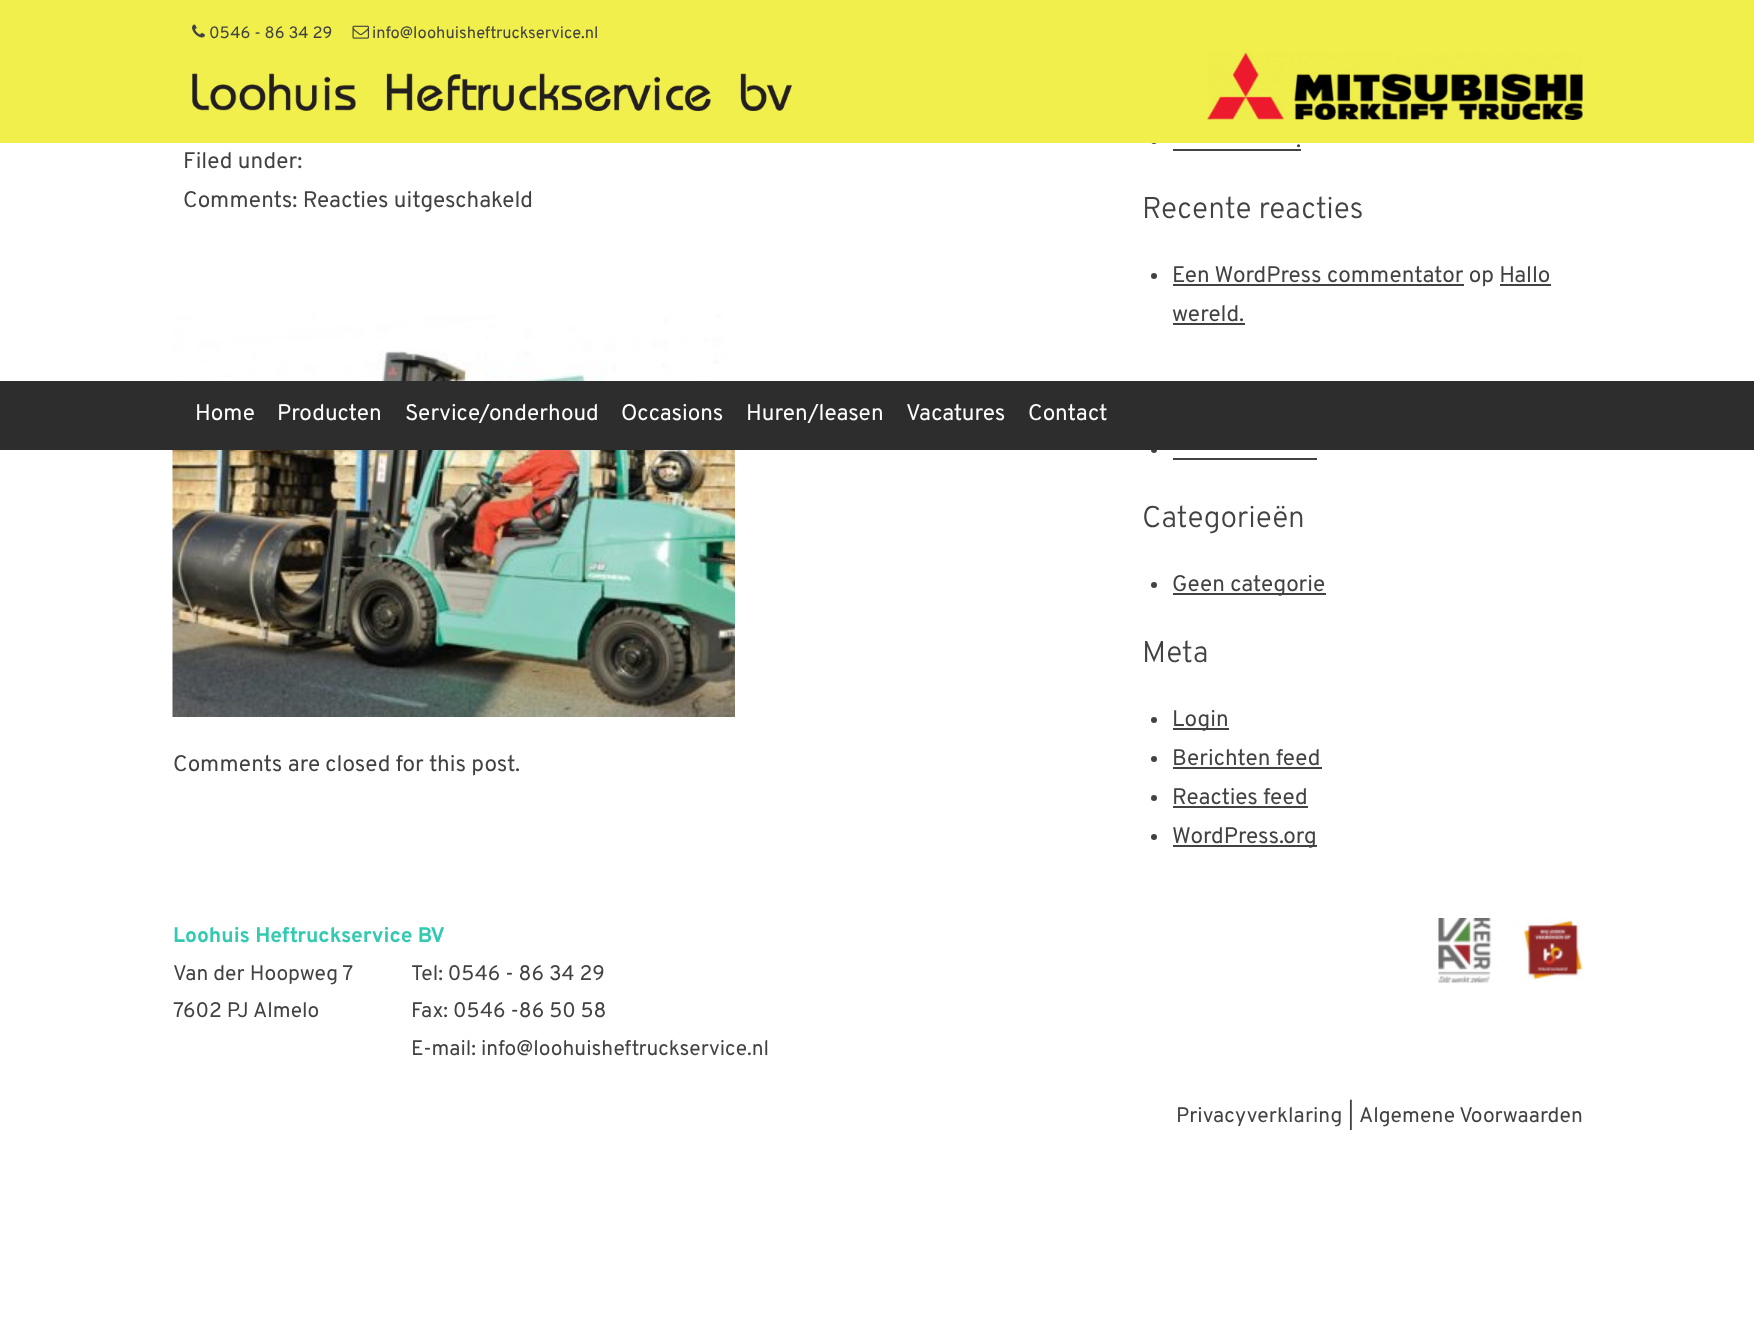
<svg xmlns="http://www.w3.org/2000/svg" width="1754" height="1319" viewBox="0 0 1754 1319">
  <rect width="100%" height="100%" fill="rgb(255,255,255)"/>
  <circle cx="1154" cy="141" r="3" fill="rgb(66,66,66)"/>
  <rect x="0" y="0" width="1754" height="143" fill="rgb(241,239,76)"/>
  <image x="192" y="24" width="13" height="14" href="pic1.png"/>
  <text x="209" y="38" font-family="Overpass" font-size="16.5" fill="rgb(66,66,66)">0546 - 86 34 29</text>
  <image x="352" y="25" width="17" height="14" href="pic2.png"/>
  <text x="372" y="38" font-family="Overpass" font-size="16.5" fill="rgb(66,66,66)">info@loohuisheftruckservice.nl</text>
  <image x="192" y="73" width="600" height="38" href="pic3.png"/>
  <image x="1207" y="52" width="376" height="68" href="pic4.png"/>
  <g font-family="Overpass" font-size="22.5" fill="rgb(66,66,66)">
    <text>
      <tspan x="183" y="168">Filed under:</tspan>
      <tspan x="183" y="207">Comments: Reacties uitgeschakeld</tspan>
    </text>
  </g>
  <image x="172" y="315" width="563" height="402" href="pic5.png"/>
  <g font-family="Overpass" font-size="22.5" fill="rgb(66,66,66)">
    <text x="173" y="771">Comments are closed for this post.</text>
    <text x="1296" y="147">.</text>
  </g>
  <rect x="1173" y="149" width="128" height="2" fill="rgb(66,66,66)"/>
  <text x="1142" y="218" font-family="Overpass" font-size="30" font-weight="300" fill="rgb(66,66,66)">Recente reacties</text>
  <circle cx="1154" cy="276" r="3" fill="rgb(66,66,66)"/>
  <rect x="1173" y="284" width="291" height="2" fill="rgb(66,66,66)"/>
  <g font-family="Overpass" font-size="22.5" fill="rgb(66,66,66)">
    <text>
      <tspan x="1172" y="282">Een WordPress commentator op Hallo</tspan>
      <tspan x="1172" y="321">wereld.</tspan>
    </text>
  </g>
  <rect x="1500" y="284" width="51" height="2" fill="rgb(66,66,66)"/>
  <rect x="1173" y="323" width="72" height="2" fill="rgb(66,66,66)"/>
  <circle cx="1154" cy="450" r="3" fill="rgb(66,66,66)"/>
  <rect x="1173" y="458" width="144" height="2" fill="rgb(66,66,66)"/>
  <text x="1142" y="527" font-family="Overpass" font-size="30" font-weight="300" fill="rgb(66,66,66)">Categorieën</text>
  <circle cx="1154" cy="585" r="3" fill="rgb(66,66,66)"/>
  <rect x="1173" y="593" width="153" height="2" fill="rgb(66,66,66)"/>
  <text x="1172" y="591" font-family="Overpass" font-size="22.5" fill="rgb(66,66,66)">Geen categorie</text>
  <text x="1142" y="662" font-family="Overpass" font-size="30" font-weight="300" fill="rgb(66,66,66)">Meta</text>
  <circle cx="1154" cy="720" r="3" fill="rgb(66,66,66)"/>
  <rect x="1173" y="728" width="56" height="2" fill="rgb(66,66,66)"/>
  <text x="1172" y="726" font-family="Overpass" font-size="22.5" fill="rgb(66,66,66)">Login</text>
  <circle cx="1154" cy="759" r="3" fill="rgb(66,66,66)"/>
  <text x="1172" y="765" font-family="Overpass" font-size="22.5" fill="rgb(66,66,66)">Berichten feed</text>
  <rect x="1173" y="767" width="149" height="2" fill="rgb(66,66,66)"/>
  <circle cx="1154" cy="798" r="3" fill="rgb(66,66,66)"/>
  <text x="1172" y="804" font-family="Overpass" font-size="22.5" fill="rgb(66,66,66)">Reacties feed</text>
  <rect x="1173" y="806" width="135" height="2" fill="rgb(66,66,66)"/>
  <circle cx="1154" cy="837" r="3" fill="rgb(66,66,66)"/>
  <rect x="1173" y="845" width="144" height="2" fill="rgb(66,66,66)"/>
  <text x="1172" y="843" font-family="Overpass" font-size="22.5" fill="rgb(66,66,66)">WordPress.org</text>
  <rect x="0" y="381" width="1754" height="69" fill="rgb(45,45,45)"/>
  <g font-family="Overpass" font-size="22.5" fill="rgb(255,255,255)">
    <text x="195" y="420">Home</text>
    <text x="277" y="420">Producten</text>
    <text x="405" y="420">Service/onderhoud</text>
    <text x="621" y="420">Occasions</text>
    <text x="746" y="420">Huren/leasen</text>
    <text x="906" y="420">Vacatures</text>
    <text x="1028" y="420">Contact</text>
  </g>
  <text x="173" y="942" font-family="Overpass" font-size="21" font-weight="bold" fill="rgb(51,202,177)">Loohuis Heftruckservice BV</text>
  <g font-family="Overpass" font-size="21" fill="rgb(66,66,66)">
    <text>
      <tspan x="173" y="980">Van der Hoopweg 7</tspan>
      <tspan x="173" y="1017">7602 PJ Almelo</tspan>
    </text>
    <text>
      <tspan x="411" y="980">Tel: 0546 - 86 34 29</tspan>
      <tspan x="411" y="1017">Fax: 0546 -86 50 58</tspan>
      <tspan x="411" y="1055">E-mail: info@loohuisheftruckservice.nl</tspan>
    </text>
  </g>
  <image x="1438" y="918" width="145" height="65" href="pic6.png"/>
  <g font-family="Overpass" font-size="21" fill="rgb(66,66,66)">
    <text x="1176" y="1122">Privacyverklaring</text>
    <text x="1348" y="1122">|</text>
    <text x="1359" y="1122">Algemene Voorwaarden</text>
  </g>
</svg>
